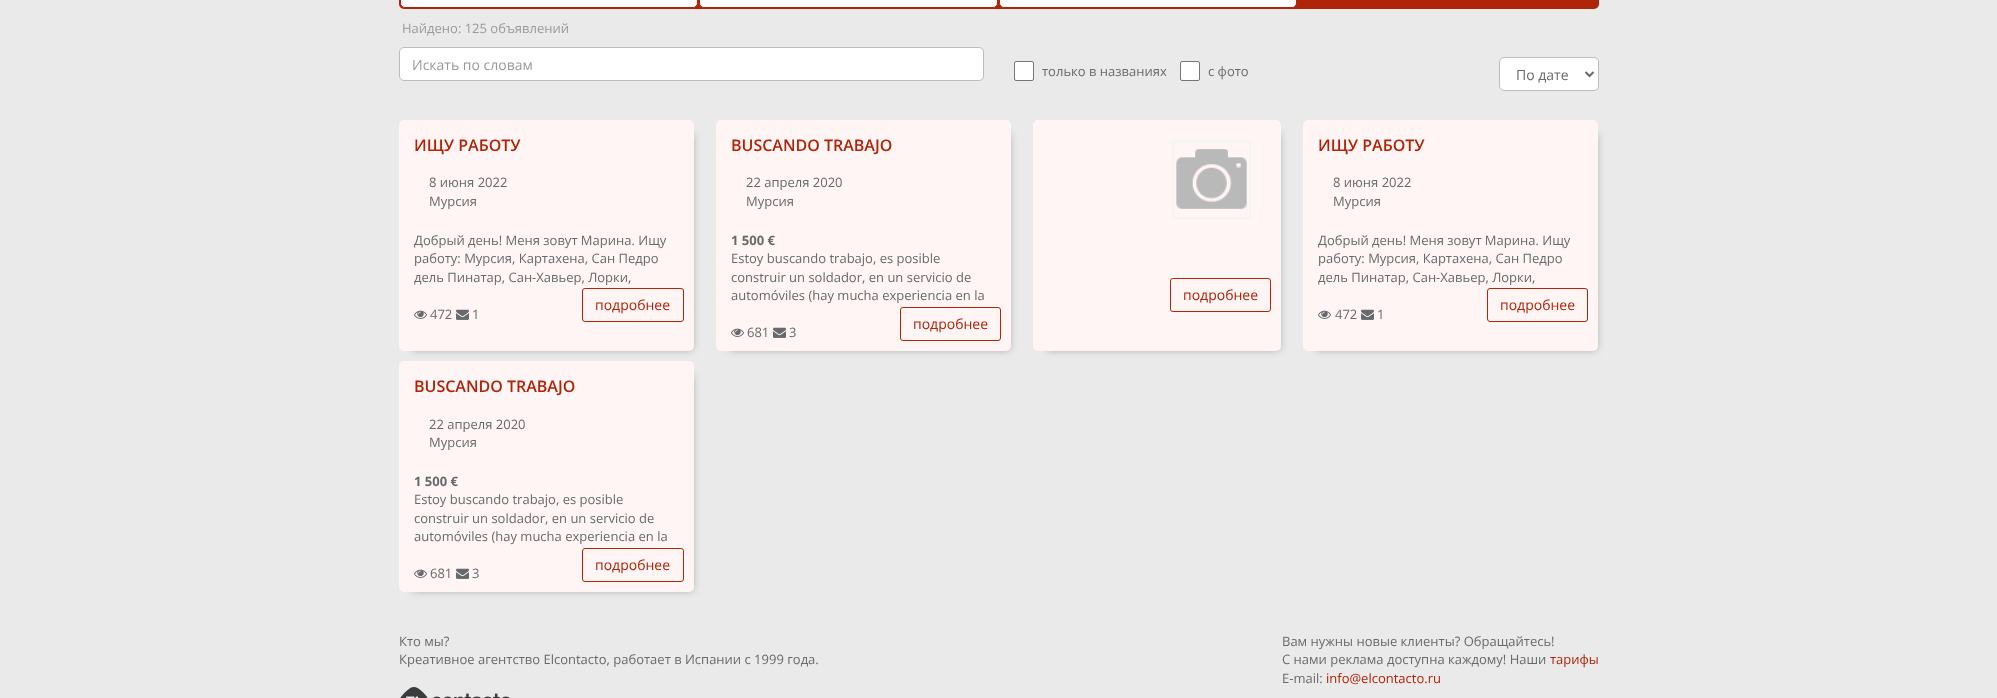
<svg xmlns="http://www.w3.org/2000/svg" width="1997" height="698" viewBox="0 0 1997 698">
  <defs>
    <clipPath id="clip1"><rect x="414" y="231" width="265" height="54"/></clipPath>
    <clipPath id="clip2"><rect x="1318" y="231" width="265" height="54"/></clipPath>
  </defs>
  <rect width="100%" height="100%" fill="rgb(234,234,234)"/>
  <rect x="399" y="-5" width="1200" height="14" rx="5" fill="rgb(176,36,9)"/>
  <rect x="400.5" y="-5.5" width="297" height="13" rx="4.5" fill="rgb(255,255,255)" stroke="rgb(176,36,9)"/>
  <rect x="699.5" y="-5.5" width="298" height="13" rx="4.5" fill="rgb(255,255,255)" stroke="rgb(176,36,9)"/>
  <rect x="999.5" y="-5.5" width="297" height="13" rx="4.5" fill="rgb(255,255,255)" stroke="rgb(176,36,9)"/>
  <text x="402" y="33" font-family="Open Sans" font-size="13" fill="rgb(154,154,154)">Найдено: 125 объявлений</text>
  <rect x="399.5" y="47.5" width="584" height="33" rx="4.5" fill="rgb(255,255,255)" stroke="rgb(189,189,189)"/>
  <text x="412" y="70" font-family="Open Sans" font-size="14" fill="rgb(154,154,154)">Искать по словам</text>
  <rect x="1014.5" y="61.5" width="19" height="19" rx="1.5" fill="rgb(255,255,255)" stroke="rgb(118,118,118)"/>
  <text x="1042" y="76" font-family="Open Sans" font-size="13" fill="rgb(103,106,108)">только в названиях</text>
  <rect x="1180.5" y="61.5" width="19" height="19" rx="1.5" fill="rgb(255,255,255)" stroke="rgb(118,118,118)"/>
  <text x="1208" y="76" font-family="Open Sans" font-size="13" fill="rgb(103,106,108)">с фото</text>
  <rect x="1499.5" y="57.5" width="99" height="33" rx="4.5" fill="rgb(255,255,255)" stroke="rgb(189,189,189)"/>
  <path d="M1585.5 72L1589.5 76L1593.5 72" fill="none" stroke="rgb(103,106,108)" stroke-width="2"/>
  <text x="1516" y="80" font-family="Open Sans" font-size="14" fill="rgb(103,106,108)">По дате</text>
  <rect x="413" y="134" width="279" height="215" fill="rgb(148,148,148)" filter="blur(4px)"/>
  <rect x="399" y="120" width="295" height="231" rx="5" fill="rgb(255,245,244)"/>
  <text x="414" y="151" font-family="Open Sans" font-size="16" font-weight="600" fill="rgb(176,36,9)">ИЩУ РАБОТУ</text>
  <g font-family="Open Sans" font-size="13" fill="rgb(103,106,108)">
    <text>
      <tspan x="429" y="187">8 июня 2022</tspan>
      <tspan x="429" y="206">Мурсия</tspan>
    </text>
  </g>
  <g clip-path="url(#clip1)">
    <text x="414" y="245" font-family="Open Sans" font-size="13" fill="rgb(103,106,108)">Добрый день! Меня зовут Марина. Ищу</text>
  </g>
  <text x="414" y="263" font-family="Open Sans" font-size="13" fill="rgb(103,106,108)">работу: Мурсия, Картахена, Сан Педро</text>
  <g clip-path="url(#clip1)">
    <text x="414" y="282" font-family="Open Sans" font-size="13" fill="rgb(103,106,108)">дель Пинатар, Сан-Хавьер, Лорки,</text>
  </g>
  <image x="414" y="310" width="13" height="9" href="pic1.png"/>
  <text x="430" y="319" font-family="Open Sans" font-size="13" fill="rgb(103,106,108)">472</text>
  <image x="456" y="309" width="13" height="11" href="pic2.png"/>
  <text x="472" y="319" font-family="Open Sans" font-size="13" fill="rgb(103,106,108)">1</text>
  <rect x="582.5" y="288.5" width="101" height="33" rx="2.5" fill="none" stroke="rgb(176,36,9)"/>
  <text x="595" y="310" font-family="Open Sans" font-size="14" fill="rgb(176,36,9)">подробнее</text>
  <rect x="730" y="134" width="279" height="215" fill="rgb(148,148,148)" filter="blur(4px)"/>
  <rect x="716" y="120" width="295" height="231" rx="5" fill="rgb(255,245,244)"/>
  <text x="731" y="151" font-family="Open Sans" font-size="16" font-weight="600" fill="rgb(176,36,9)">BUSCANDO TRABAJO</text>
  <g font-family="Open Sans" font-size="13" fill="rgb(103,106,108)">
    <text>
      <tspan x="746" y="187">22 апреля 2020</tspan>
      <tspan x="746" y="206">Мурсия</tspan>
    </text>
  </g>
  <text x="731" y="245" font-family="Open Sans" font-size="13" font-weight="bold" fill="rgb(103,106,108)">1 500 €</text>
  <g font-family="Open Sans" font-size="13" fill="rgb(103,106,108)">
    <text>
      <tspan x="731" y="263">Estoy buscando trabajo, es posible</tspan>
      <tspan x="731" y="282">construir un soldador, en un servicio de</tspan>
      <tspan x="731" y="300">automóviles (hay mucha experiencia en la</tspan>
    </text>
  </g>
  <image x="731" y="328" width="13" height="9" href="pic1.png"/>
  <text x="747" y="337" font-family="Open Sans" font-size="13" fill="rgb(103,106,108)">681</text>
  <image x="773" y="327" width="13" height="11" href="pic2.png"/>
  <text x="789" y="337" font-family="Open Sans" font-size="13" fill="rgb(103,106,108)">3</text>
  <rect x="900.5" y="307.5" width="100" height="33" rx="2.5" fill="none" stroke="rgb(176,36,9)"/>
  <text x="913" y="329" font-family="Open Sans" font-size="14" fill="rgb(176,36,9)">подробнее</text>
  <rect x="1047" y="134" width="232" height="215" fill="rgb(148,148,148)" filter="blur(4px)"/>
  <rect x="1033" y="120" width="248" height="231" rx="5" fill="rgb(255,245,244)"/>
  <rect x="1172.5" y="140.5" width="78" height="78" fill="none" stroke="rgb(245,245,245)"/>
  <rect x="1173.5" y="141.5" width="76" height="76" fill="none" stroke="rgb(245,245,245)"/>
  <image x="1176" y="149" width="71" height="60" href="pic3.png"/>
  <rect x="1170.5" y="278.5" width="100" height="33" rx="2.5" fill="none" stroke="rgb(176,36,9)"/>
  <text x="1183" y="300" font-family="Open Sans" font-size="14" fill="rgb(176,36,9)">подробнее</text>
  <rect x="1317" y="134" width="279" height="215" fill="rgb(148,148,148)" filter="blur(4px)"/>
  <rect x="1303" y="120" width="295" height="231" rx="5" fill="rgb(255,245,244)"/>
  <text x="1318" y="151" font-family="Open Sans" font-size="16" font-weight="600" fill="rgb(176,36,9)">ИЩУ РАБОТУ</text>
  <g font-family="Open Sans" font-size="13" fill="rgb(103,106,108)">
    <text>
      <tspan x="1333" y="187">8 июня 2022</tspan>
      <tspan x="1333" y="206">Мурсия</tspan>
    </text>
    <text>
      <tspan x="1318" y="245">Добрый день! Меня зовут Марина. Ищу</tspan>
      <tspan x="1318" y="263">работу: Мурсия, Картахена, Сан Педро</tspan>
    </text>
  </g>
  <g clip-path="url(#clip2)">
    <text x="1318" y="282" font-family="Open Sans" font-size="13" fill="rgb(103,106,108)">дель Пинатар, Сан-Хавьер, Лорки,</text>
  </g>
  <image x="1318" y="310" width="13" height="9" href="pic1.png"/>
  <text x="1335" y="319" font-family="Open Sans" font-size="13" fill="rgb(103,106,108)">472</text>
  <image x="1361" y="309" width="13" height="11" href="pic2.png"/>
  <text x="1377" y="319" font-family="Open Sans" font-size="13" fill="rgb(103,106,108)">1</text>
  <rect x="1487.5" y="288.5" width="100" height="33" rx="2.5" fill="none" stroke="rgb(176,36,9)"/>
  <text x="1500" y="310" font-family="Open Sans" font-size="14" fill="rgb(176,36,9)">подробнее</text>
  <rect x="413" y="375" width="279" height="215" fill="rgb(148,148,148)" filter="blur(4px)"/>
  <rect x="399" y="361" width="295" height="231" rx="5" fill="rgb(255,245,244)"/>
  <text x="414" y="392" font-family="Open Sans" font-size="16" font-weight="600" fill="rgb(176,36,9)">BUSCANDO TRABAJO</text>
  <g font-family="Open Sans" font-size="13" fill="rgb(103,106,108)">
    <text>
      <tspan x="429" y="429">22 апреля 2020</tspan>
      <tspan x="429" y="447">Мурсия</tspan>
    </text>
  </g>
  <text x="414" y="486" font-family="Open Sans" font-size="13" font-weight="bold" fill="rgb(103,106,108)">1 500 €</text>
  <g font-family="Open Sans" font-size="13" fill="rgb(103,106,108)">
    <text>
      <tspan x="414" y="504">Estoy buscando trabajo, es posible</tspan>
      <tspan x="414" y="523">construir un soldador, en un servicio de</tspan>
      <tspan x="414" y="541">automóviles (hay mucha experiencia en la</tspan>
    </text>
  </g>
  <image x="414" y="569" width="13" height="9" href="pic1.png"/>
  <text x="430" y="578" font-family="Open Sans" font-size="13" fill="rgb(103,106,108)">681</text>
  <image x="456" y="568" width="13" height="11" href="pic2.png"/>
  <text x="472" y="578" font-family="Open Sans" font-size="13" fill="rgb(103,106,108)">3</text>
  <rect x="582.5" y="548.5" width="101" height="33" rx="2.5" fill="none" stroke="rgb(176,36,9)"/>
  <text x="595" y="570" font-family="Open Sans" font-size="14" fill="rgb(176,36,9)">подробнее</text>
  <g font-family="Open Sans" font-size="13" fill="rgb(103,106,108)">
    <text>
      <tspan x="399" y="646">Кто мы?</tspan>
      <tspan x="399" y="664">Креативное агентство Elcontacto, работает в Испании с 1999 года.</tspan>
    </text>
    <text>
      <tspan x="1282" y="646">Вам нужны новые клиенты? Обращайтесь!</tspan>
      <tspan x="1282" y="664">С нами реклама доступна каждому! Наши</tspan>
    </text>
  </g>
  <text x="1550" y="664" font-family="Open Sans" font-size="13" fill="rgb(176,36,9)">тарифы</text>
  <text x="1282" y="683" font-family="Open Sans" font-size="13" fill="rgb(103,106,108)">E-mail:</text>
  <text x="1326" y="683" font-family="Open Sans" font-size="13" fill="rgb(176,36,9)">info@elcontacto.ru</text>
  <image x="400" y="687" width="110" height="11" href="pic4.png"/>
</svg>
